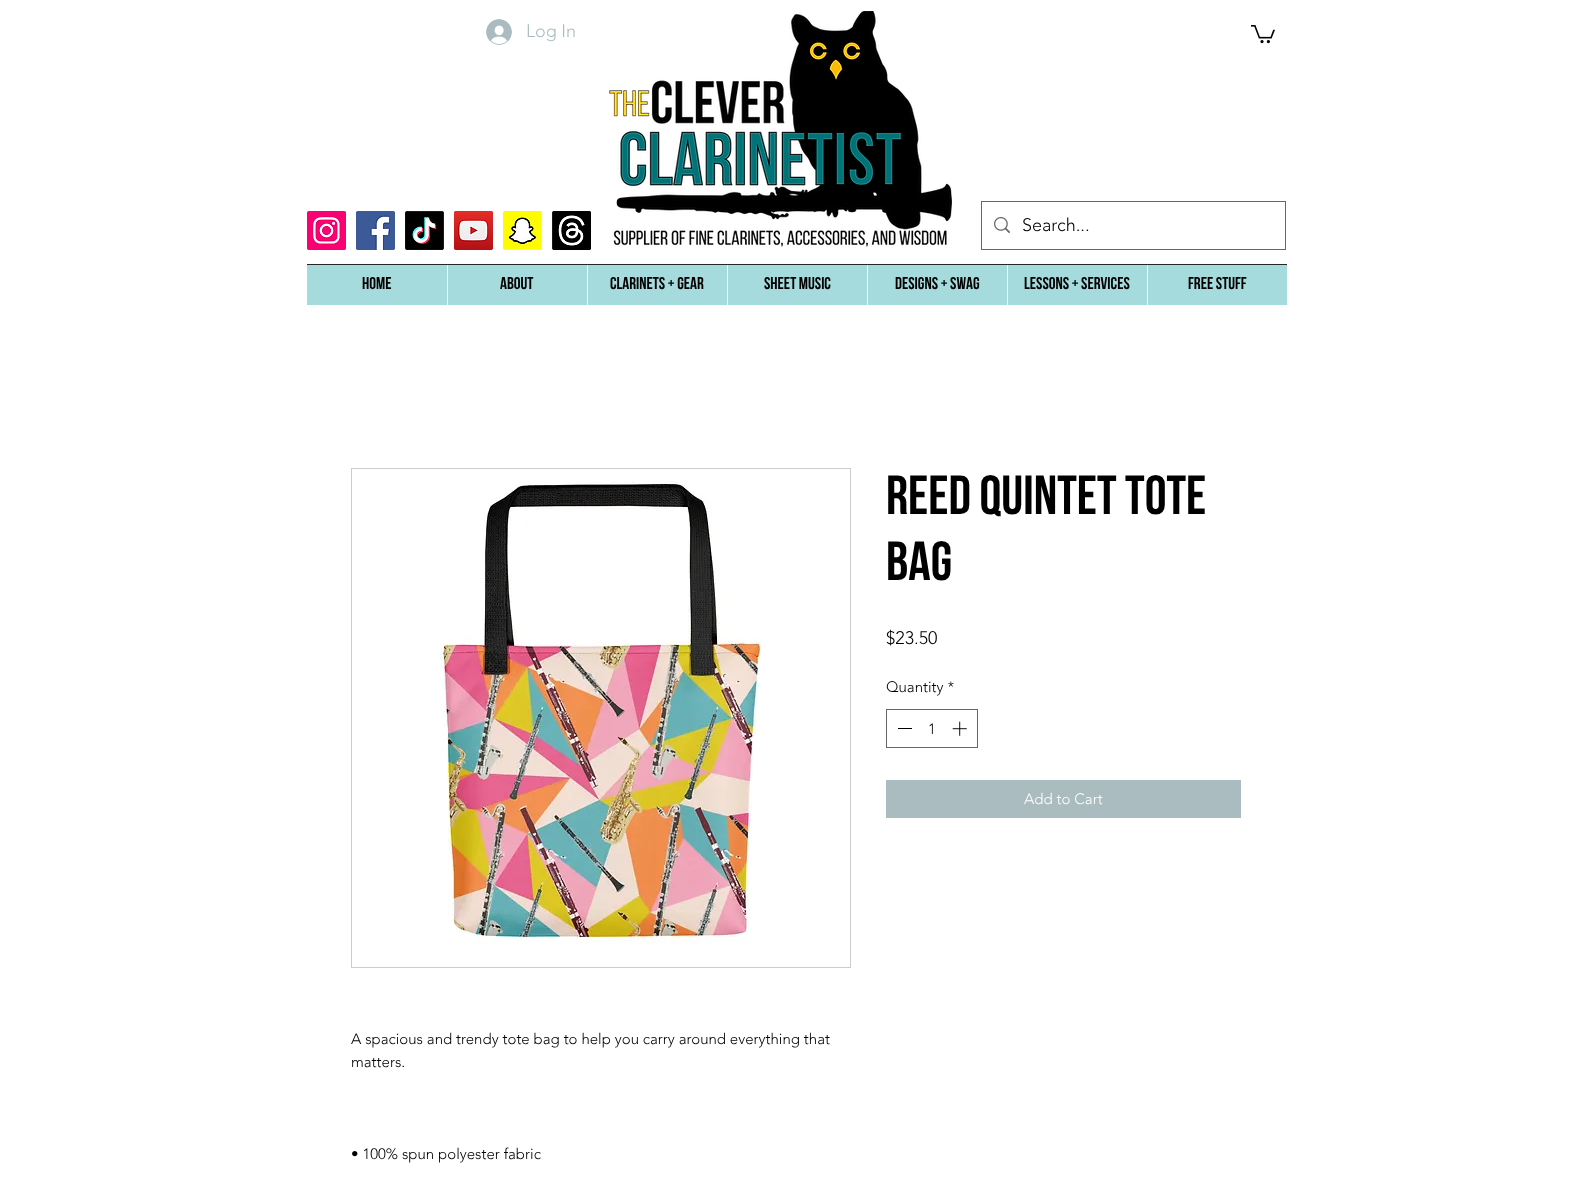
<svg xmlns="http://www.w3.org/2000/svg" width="1593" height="1183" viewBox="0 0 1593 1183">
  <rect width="100%" height="100%" fill="rgb(255,255,255)"/>
  <image x="486" y="19" width="26" height="26" href="pic1.png"/>
  <text x="526" y="37" font-family="'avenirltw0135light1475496'" font-size="18" font-weight="300" fill="rgb(170,188,191)">Log In</text>
  <image x="609" y="11" width="343" height="236" href="pic2.png"/>
  <image x="307" y="211" width="39" height="39" href="pic3.png"/>
  <image x="356" y="211" width="39" height="39" href="pic4.png"/>
  <image x="405" y="211" width="39" height="39" href="pic5.png"/>
  <image x="454" y="211" width="39" height="39" href="pic6.png"/>
  <image x="503" y="211" width="39" height="39" href="pic7.png"/>
  <image x="552" y="211" width="39" height="39" href="pic8.png"/>
  <rect x="981.5" y="201.5" width="304" height="48" fill="none" stroke="rgb(102,102,102)"/>
  <image x="994" y="217" width="16" height="17" href="pic9.png"/>
  <text x="1022" y="231" font-family="'avenirltw0135light1475496'" font-size="18" font-weight="300" fill="rgb(0,0,0)">Search...</text>
  <rect x="307" y="264" width="980" height="1" fill="rgb(38,38,38)"/>
  <rect x="307" y="265" width="980" height="40" fill="rgb(166,219,221)"/>
  <text x="362" y="289" font-family="'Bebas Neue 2'" font-size="17" font-weight="bold" fill="rgb(0,0,0)">Home</text>
  <rect x="447" y="265" width="1" height="40" fill="rgb(255,255,255)"/>
  <text x="500" y="289" font-family="'Bebas Neue 2'" font-size="17" font-weight="bold" fill="rgb(0,0,0)">ABOUT</text>
  <rect x="587" y="265" width="1" height="40" fill="rgb(255,255,255)"/>
  <text x="610" y="289" font-family="'Bebas Neue 2'" font-size="17" font-weight="bold" fill="rgb(0,0,0)">CLARINETS + GEAR</text>
  <rect x="727" y="265" width="1" height="40" fill="rgb(255,255,255)"/>
  <text x="764" y="289" font-family="'Bebas Neue 2'" font-size="17" font-weight="bold" fill="rgb(0,0,0)">SHEET MUSIC</text>
  <rect x="867" y="265" width="1" height="40" fill="rgb(255,255,255)"/>
  <text x="895" y="289" font-family="'Bebas Neue 2'" font-size="17" font-weight="bold" fill="rgb(0,0,0)">DESIGNS + SWAG</text>
  <rect x="1007" y="265" width="1" height="40" fill="rgb(255,255,255)"/>
  <text x="1024" y="289" font-family="'Bebas Neue 2'" font-size="17" font-weight="bold" fill="rgb(0,0,0)">LESSONS + SERVICES</text>
  <rect x="1147" y="265" width="1" height="40" fill="rgb(255,255,255)"/>
  <text x="1188" y="289" font-family="'Bebas Neue 2'" font-size="17" font-weight="bold" fill="rgb(0,0,0)">FREE STUFF</text>
  <image x="1251" y="25" width="24" height="19" href="pic10.png"/>
  <g font-family="Bebas Neue" font-size="55" font-weight="bold" fill="rgb(0,0,0)">
    <text>
      <tspan x="886" y="514">Reed Quintet Tote</tspan>
      <tspan x="886" y="580">Bag</tspan>
    </text>
  </g>
  <text x="886" y="644" font-family="'avenirltw0135light1475496'" font-size="18" font-weight="300" fill="rgb(0,0,0)">$23.50</text>
  <text x="886" y="692" font-family="'avenirltw0135light1475496'" font-size="15" font-weight="300" fill="rgb(0,0,0)">Quantity *</text>
  <rect x="886.5" y="709.5" width="91" height="38" fill="none" stroke="rgb(102,102,102)"/>
  <rect x="898" y="728" width="14" height="1" fill="rgb(0,0,0)"/>
  <text x="928" y="734" font-family="'avenirltw0135light1475496'" font-size="15" font-weight="300" fill="rgb(0,0,0)">1</text>
  <image x="952" y="721" width="15" height="15" href="pic11.png"/>
  <rect x="886" y="780" width="355" height="38" fill="rgb(170,188,191)"/>
  <text x="1024" y="804" font-family="'avenirltw0135light1475496'" font-size="15" font-weight="300" fill="rgb(255,255,255)">Add to Cart</text>
  <rect x="351.5" y="468.5" width="499" height="499" fill="none" stroke="rgb(204,204,204)"/>
  <image x="440" y="481" width="321" height="464" href="pic12.png"/>
  <g font-family="'avenirltw0135light1475496'" font-size="15" font-weight="300" fill="rgb(0,0,0)">
    <text>
      <tspan x="351" y="1044">A spacious and trendy tote bag to help you carry around everything that</tspan>
      <tspan x="351" y="1067">matters.</tspan>
    </text>
    <text x="351" y="1159">• 100% spun polyester fabric</text>
  </g>
</svg>
